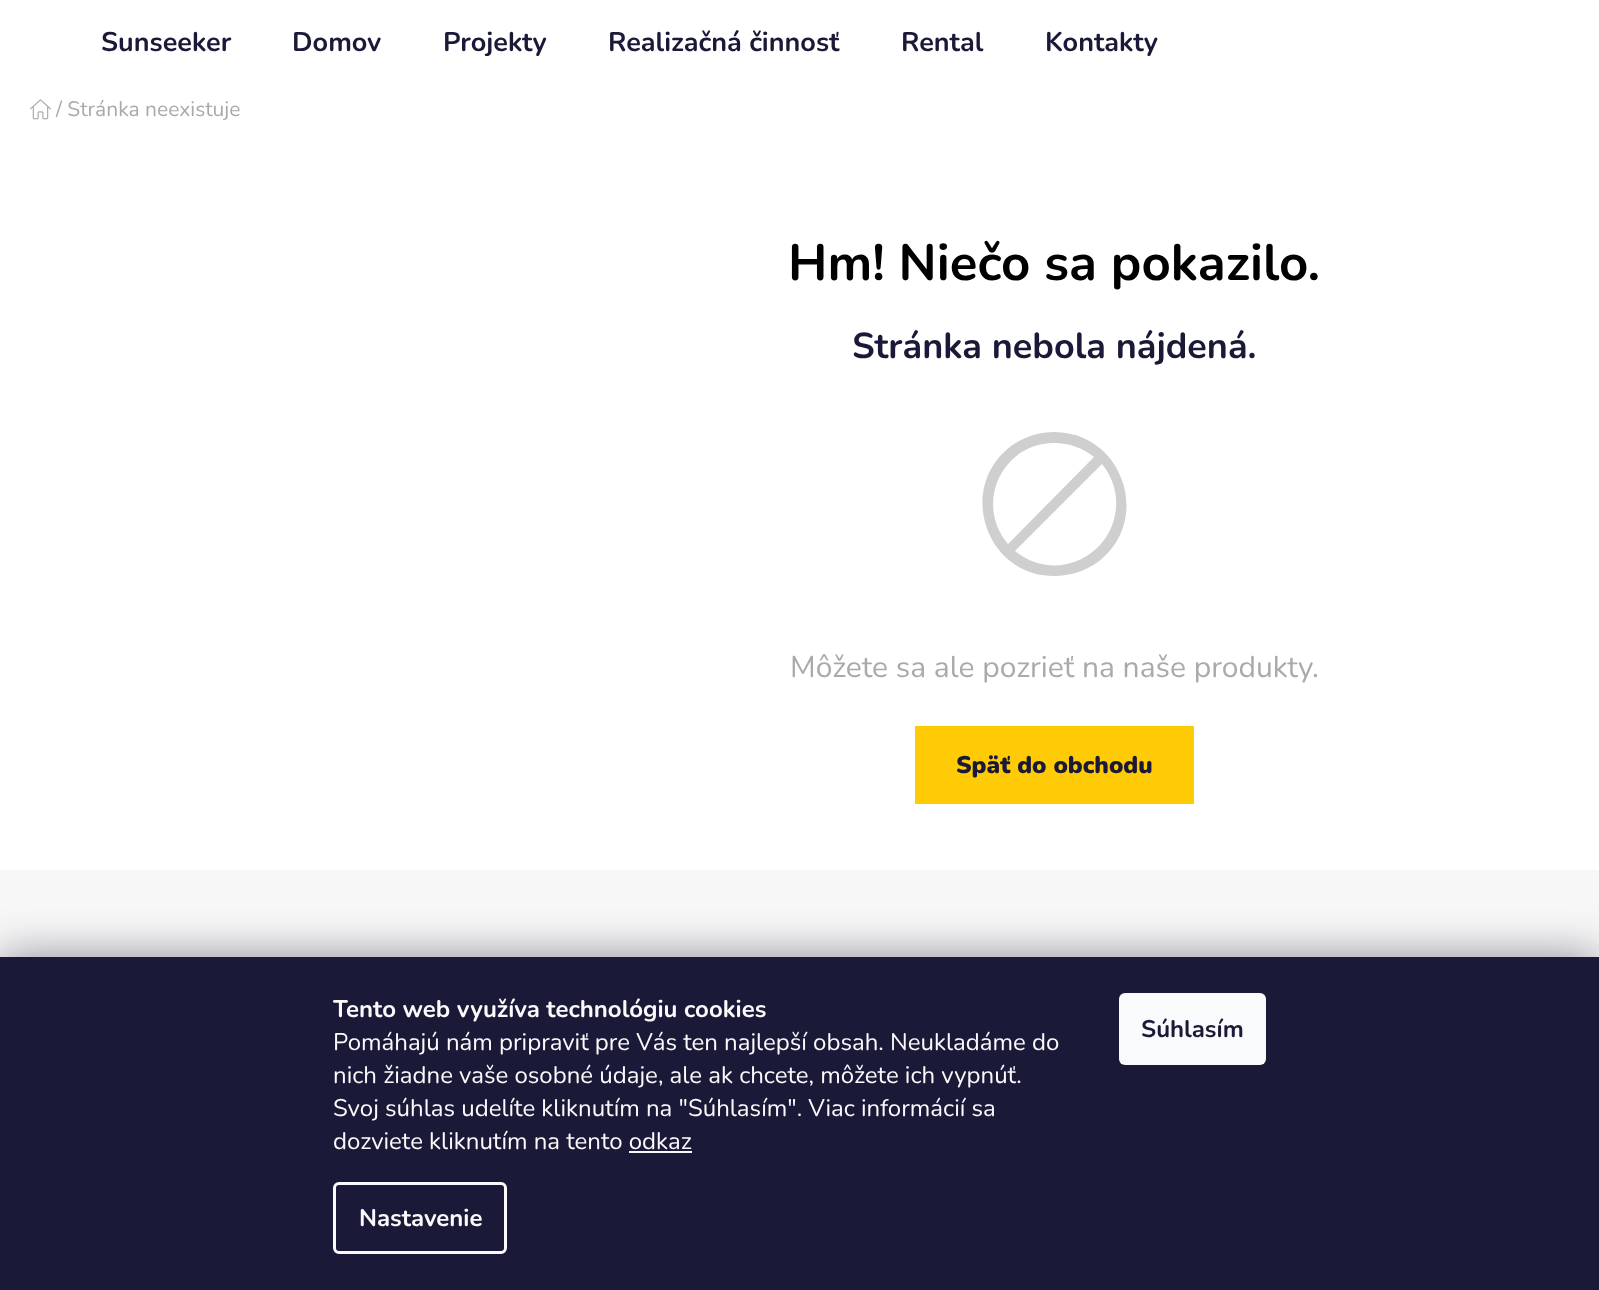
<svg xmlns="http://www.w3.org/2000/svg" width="1599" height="1290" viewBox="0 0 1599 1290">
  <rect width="100%" height="100%" fill="rgb(255,255,255)"/>
  <g font-family="Nunito" font-size="27" font-weight="bold" fill="rgb(26,25,55)">
    <text x="101" y="51">Sunseeker</text>
    <text x="292" y="51">Domov</text>
    <text x="443" y="51">Projekty</text>
    <text x="608" y="51">Realizačná činnosť</text>
    <text x="901" y="51">Rental</text>
    <text x="1045" y="51">Kontakty</text>
  </g>
  <image x="30" y="99" width="21" height="21" href="pic1.png"/>
  <text x="56" y="116" font-family="Nunito" font-size="21" fill="rgb(170,170,170)">/ Stránka neexistuje</text>
  <text x="788" y="280" font-family="Nunito" font-size="51" font-weight="bold" fill="rgb(0,0,0)">Hm! Niečo sa pokazilo.</text>
  <text x="852" y="358" font-family="Nunito" font-size="36" font-weight="bold" fill="rgb(26,25,55)">Stránka nebola nájdená.</text>
  <path d="M1054 432C1039 432 1024 437 1011 446C956 488 986 576 1054 576C1070 576 1085 571 1098 562C1153 520 1123 432 1054 432ZM1054 443C1069 443 1083 448 1094 457L1008 544C974 504 1002 443 1054 443ZM1102 464C1110 474 1115 486 1116 498C1120 553 1057 586 1015 551Z" fill="rgb(207,207,207)"/>
  <text x="790" y="677" font-family="Nunito" font-size="30" fill="rgb(170,170,170)">Môžete sa ale pozrieť na naše produkty.</text>
  <rect x="915" y="726" width="279" height="78" fill="rgb(255,203,7)"/>
  <text x="956" y="773" font-family="Nunito" font-size="24" font-weight="900" fill="rgb(26,25,55)">Späť do obchodu</text>
  <rect x="0" y="870" width="1599" height="87" fill="rgb(247,247,247)"/>
  <rect x="0" y="957" width="1599" height="333" fill="rgba(27,25,57,0.5)" filter="blur(22.5px)"/>
  <rect x="0" y="957" width="1599" height="333" fill="rgb(26,25,55)"/>
  <text x="333" y="1017" font-family="Nunito" font-size="24" font-weight="bold" fill="rgb(248,250,251)">Tento web využíva technológiu cookies</text>
  <g font-family="Nunito" font-size="24" fill="rgb(248,250,251)">
    <text>
      <tspan x="333" y="1050">Pomáhajú nám pripraviť pre Vás ten najlepší obsah. Neukladáme do</tspan>
      <tspan x="333" y="1083">nich žiadne vaše osobné údaje, ale ak chcete, môžete ich vypnúť.</tspan>
      <tspan x="333" y="1116">Svoj súhlas udelíte kliknutím na "Súhlasím". Viac informácií sa</tspan>
      <tspan x="333" y="1149">dozviete kliknutím na tento odkaz</tspan>
    </text>
  </g>
  <rect x="629" y="1151" width="63" height="2" fill="rgb(248,250,251)"/>
  <rect x="334.5" y="1183.5" width="171" height="69" rx="4.5" fill="none" stroke="rgb(248,250,251)" stroke-width="3"/>
  <text x="359" y="1226" font-family="Nunito" font-size="24" font-weight="bold" fill="rgb(248,250,251)">Nastavenie</text>
  <rect x="1119" y="993" width="147" height="72" rx="6" fill="rgb(248,250,251)"/>
  <text x="1141" y="1037" font-family="Nunito" font-size="24" font-weight="bold" fill="rgb(26,25,55)">Súhlasím</text>
</svg>
